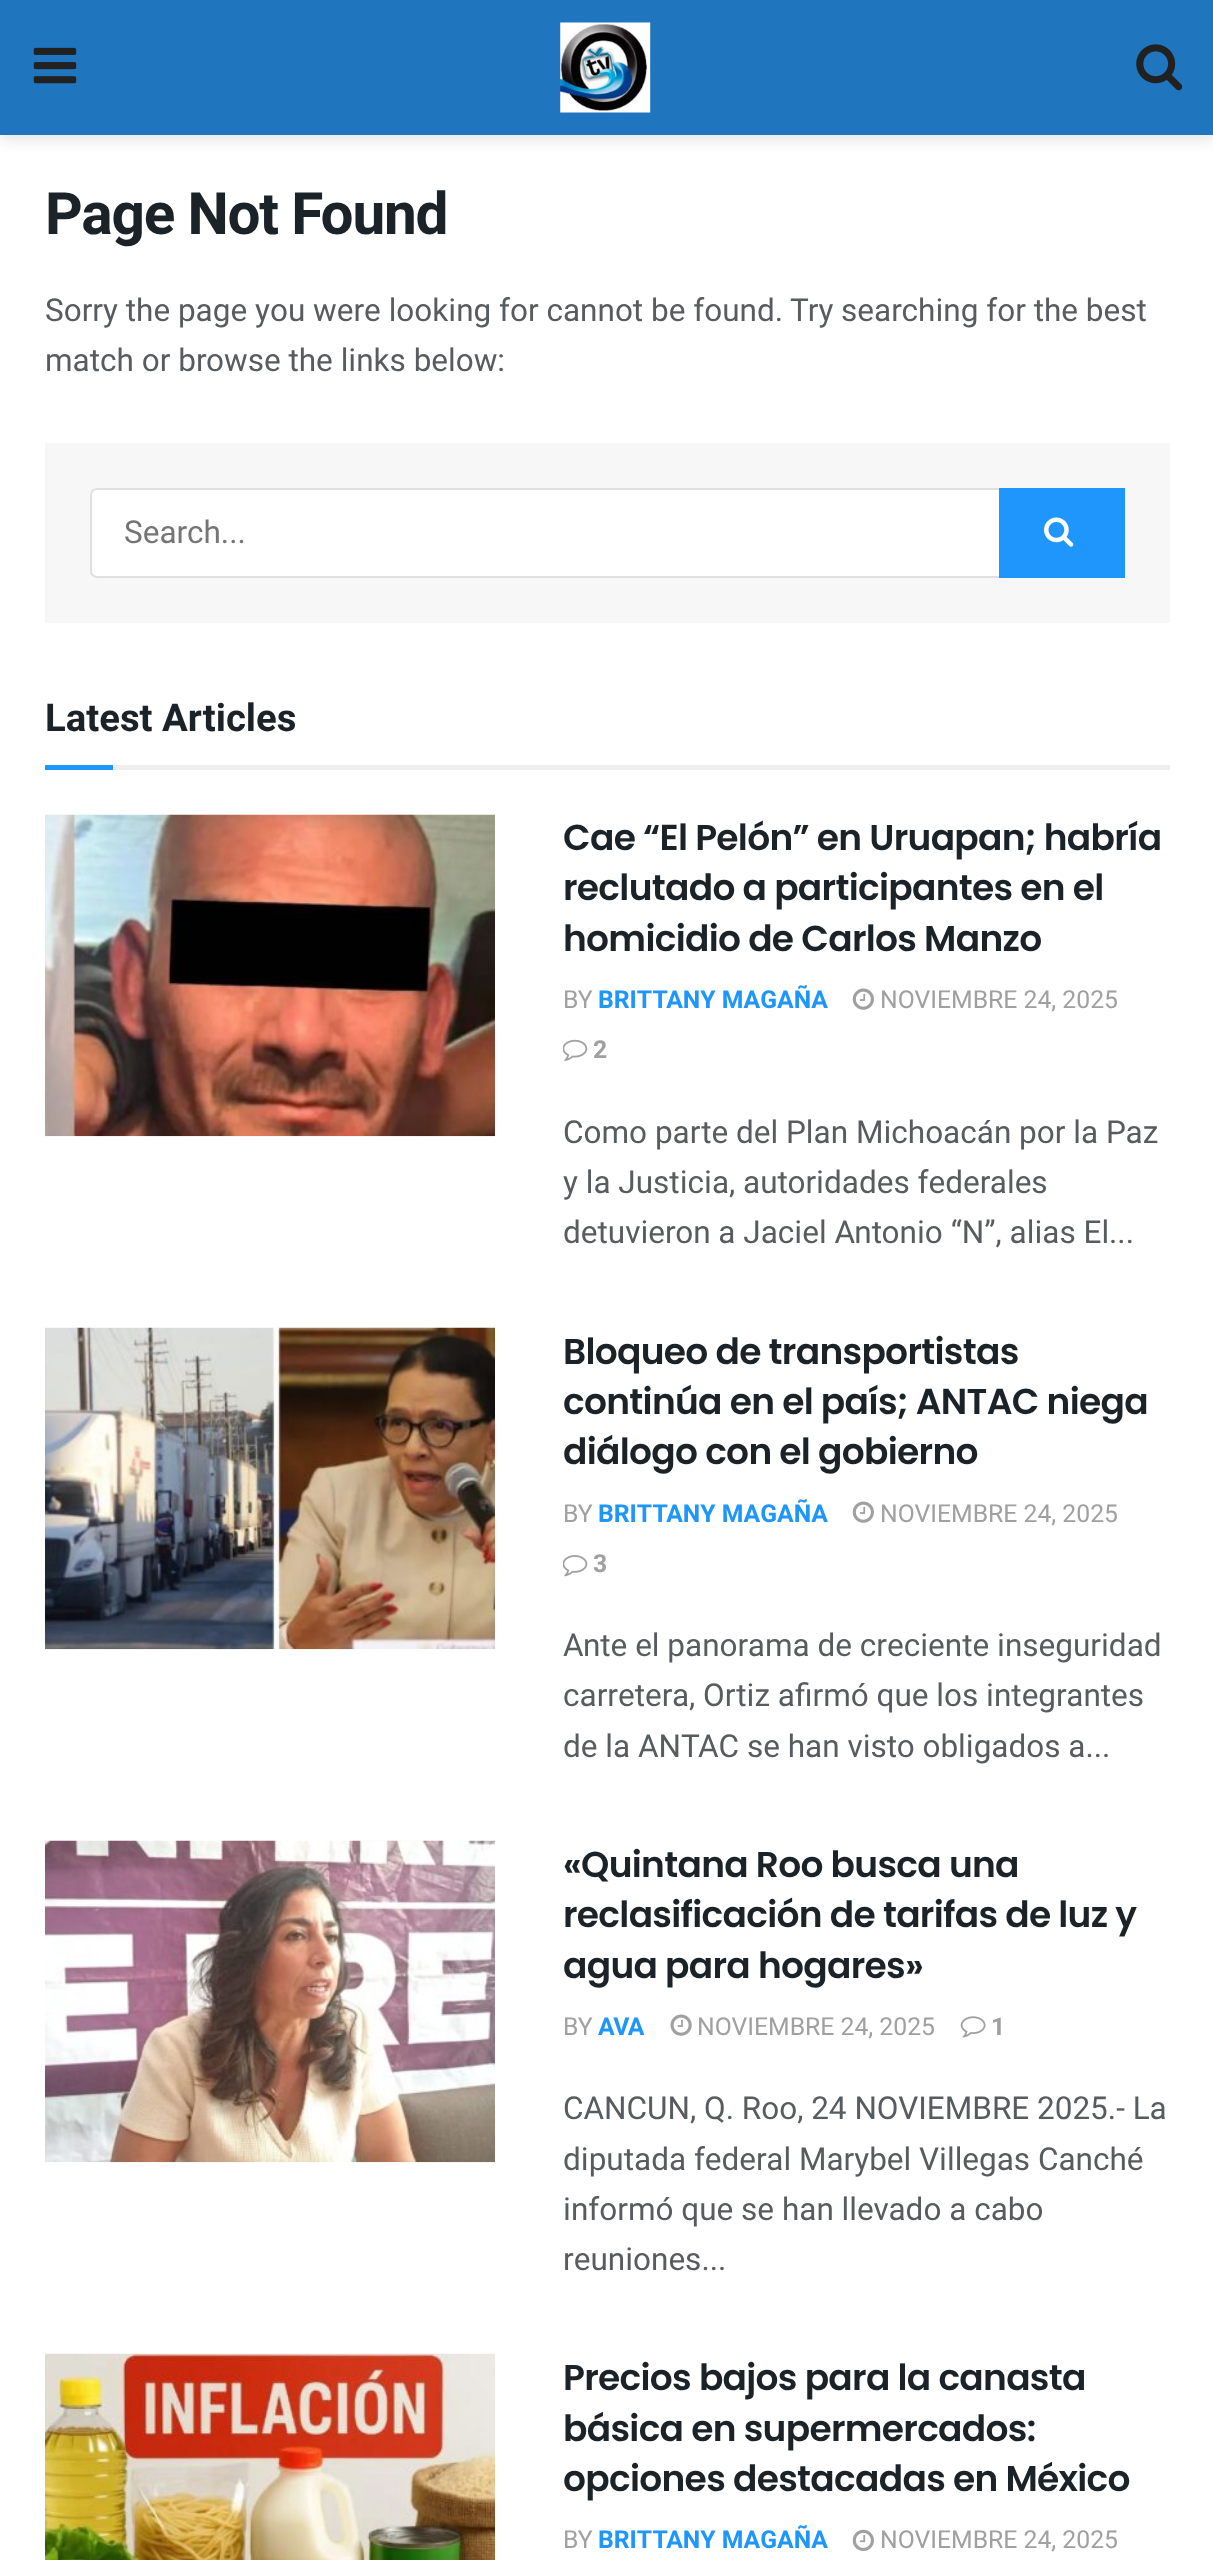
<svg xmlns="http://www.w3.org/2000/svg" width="1213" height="2560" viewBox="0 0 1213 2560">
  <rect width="100%" height="100%" fill="rgb(255,255,255)"/>
  <rect x="0" y="5" width="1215" height="135" fill="rgba(0,0,0,0.1)" filter="blur(7px)"/>
  <rect x="0" y="0" width="1213" height="135" fill="rgb(32,117,191)"/>
  <image x="33" y="47" width="44" height="37" href="pic1.png"/>
  <image x="560" y="22" width="91" height="91" href="pic2.png"/>
  <image x="1136" y="44" width="47" height="47" href="pic3.png"/>
  <text x="45" y="234" font-family="Heebo" font-size="58.5" font-weight="bold" letter-spacing="-1.2" fill="rgb(27,34,40)">Page Not Found</text>
  <g font-family="Heebo" font-size="31.5" fill="rgb(89,92,95)">
    <text>
      <tspan x="45" y="321">Sorry the page you were looking for cannot be found. Try searching for the best</tspan>
      <tspan x="45" y="371">match or browse the links below:</tspan>
    </text>
  </g>
  <rect x="45" y="443" width="1125" height="180" fill="rgb(247,247,247)"/>
  <rect x="91" y="489" width="1033" height="88" rx="6" fill="rgb(255,255,255)" stroke="rgb(224,224,224)" stroke-width="2"/>
  <text x="124" y="543" font-family="Heebo" font-size="31.5" fill="rgb(117,117,117)">Search...</text>
  <rect x="999" y="488" width="126" height="90" fill="rgb(30,150,252)"/>
  <image x="1044" y="517" width="30" height="30" href="pic4.png"/>
  <rect x="113" y="765" width="1057" height="5" fill="rgb(238,238,238)"/>
  <text x="45" y="731" font-family="Heebo" font-size="38.25" font-weight="bold" fill="rgb(27,34,40)">Latest Articles</text>
  <rect x="45" y="765" width="68" height="5" fill="rgb(30,150,252)"/>
  <image x="356" y="814" width="89" height="1" href="pic6.png"/>
  <image x="45" y="814" width="450" height="323" href="pic5.png"/>
  <g font-family="Poppins" font-size="36" font-weight="600" letter-spacing="-0.7" fill="rgb(27,34,40)">
    <text>
      <tspan x="563" y="850">Cae “El Pelón” en Uruapan; habría</tspan>
      <tspan x="563" y="900">reclutado a participantes en el</tspan>
      <tspan x="563" y="951">homicidio de Carlos Manzo</tspan>
    </text>
  </g>
  <text x="563" y="1008" font-family="Heebo" font-size="24.75" fill="rgb(160,160,160)">BY</text>
  <text x="598" y="1008" font-family="Heebo" font-size="24.75" font-weight="bold" fill="rgb(30,150,252)">BRITTANY MAGAÑA</text>
  <image x="852" y="988" width="22" height="22" href="pic7.png"/>
  <text x="880" y="1008" font-family="Heebo" font-size="24.75" fill="rgb(160,160,160)">NOVIEMBRE 24, 2025</text>
  <image x="563" y="1039" width="25" height="22" href="pic8.png"/>
  <text x="593" y="1058" font-family="Heebo" font-size="24.75" font-weight="bold" fill="rgb(160,160,160)">2</text>
  <g font-family="Heebo" font-size="31.5" fill="rgb(89,92,95)">
    <text>
      <tspan x="563" y="1143">Como parte del Plan Michoacán por la Paz</tspan>
      <tspan x="563" y="1193">y la Justicia, autoridades federales</tspan>
      <tspan x="563" y="1243">detuvieron a Jaciel Antonio “N”, alias El...</tspan>
    </text>
  </g>
  <image x="356" y="1327" width="89" height="1" href="pic6.png"/>
  <image x="45" y="1327" width="450" height="323" href="pic9.png"/>
  <g font-family="Poppins" font-size="36" font-weight="600" letter-spacing="-0.7" fill="rgb(27,34,40)">
    <text>
      <tspan x="563" y="1364">Bloqueo de transportistas</tspan>
      <tspan x="563" y="1414">continúa en el país; ANTAC niega</tspan>
      <tspan x="563" y="1464">diálogo con el gobierno</tspan>
    </text>
  </g>
  <text x="563" y="1522" font-family="Heebo" font-size="24.75" fill="rgb(160,160,160)">BY</text>
  <text x="598" y="1522" font-family="Heebo" font-size="24.75" font-weight="bold" fill="rgb(30,150,252)">BRITTANY MAGAÑA</text>
  <image x="852" y="1501" width="22" height="22" href="pic7.png"/>
  <text x="880" y="1522" font-family="Heebo" font-size="24.75" fill="rgb(160,160,160)">NOVIEMBRE 24, 2025</text>
  <image x="563" y="1555" width="25" height="22" href="pic10.png"/>
  <text x="593" y="1572" font-family="Heebo" font-size="24.75" font-weight="bold" fill="rgb(160,160,160)">3</text>
  <g font-family="Heebo" font-size="31.5" fill="rgb(89,92,95)">
    <text>
      <tspan x="563" y="1656">Ante el panorama de creciente inseguridad</tspan>
      <tspan x="563" y="1706">carretera, Ortiz afirmó que los integrantes</tspan>
      <tspan x="563" y="1757">de la ANTAC se han visto obligados a...</tspan>
    </text>
  </g>
  <image x="356" y="1840" width="89" height="1" href="pic6.png"/>
  <image x="45" y="1840" width="450" height="323" href="pic11.png"/>
  <g font-family="Poppins" font-size="36" font-weight="600" letter-spacing="-0.7" fill="rgb(27,34,40)">
    <text>
      <tspan x="563" y="1877">«Quintana Roo busca una</tspan>
      <tspan x="563" y="1927">reclasificación de tarifas de luz y</tspan>
      <tspan x="563" y="1978">agua para hogares»</tspan>
    </text>
  </g>
  <text x="563" y="2035" font-family="Heebo" font-size="24.75" fill="rgb(160,160,160)">BY</text>
  <text x="598" y="2035" font-family="Heebo" font-size="24.75" font-weight="bold" fill="rgb(30,150,252)">AVA</text>
  <image x="670" y="2014" width="22" height="22" href="pic12.png"/>
  <text x="697" y="2035" font-family="Heebo" font-size="24.75" fill="rgb(160,160,160)">NOVIEMBRE 24, 2025</text>
  <image x="960" y="2016" width="26" height="22" href="pic13.png"/>
  <text x="991" y="2035" font-family="Heebo" font-size="24.75" font-weight="bold" fill="rgb(160,160,160)">1</text>
  <g font-family="Heebo" font-size="31.5" fill="rgb(89,92,95)">
    <text>
      <tspan x="563" y="2119">CANCUN, Q. Roo, 24 NOVIEMBRE 2025.- La</tspan>
      <tspan x="563" y="2170">diputada federal Marybel Villegas Canché</tspan>
      <tspan x="563" y="2220">informó que se han llevado a cabo</tspan>
      <tspan x="563" y="2270">reuniones...</tspan>
    </text>
  </g>
  <image x="356" y="2353" width="89" height="1" href="pic6.png"/>
  <image x="45" y="2353" width="450" height="207" href="pic14.png"/>
  <g font-family="Poppins" font-size="36" font-weight="600" letter-spacing="-0.7" fill="rgb(27,34,40)">
    <text>
      <tspan x="563" y="2390">Precios bajos para la canasta</tspan>
      <tspan x="563" y="2441">básica en supermercados:</tspan>
      <tspan x="563" y="2491">opciones destacadas en México</tspan>
    </text>
  </g>
  <text x="563" y="2548" font-family="Heebo" font-size="24.75" fill="rgb(160,160,160)">BY</text>
  <text x="598" y="2548" font-family="Heebo" font-size="24.75" font-weight="bold" fill="rgb(30,150,252)">BRITTANY MAGAÑA</text>
  <image x="852" y="2529" width="22" height="22" href="pic15.png"/>
  <text x="880" y="2548" font-family="Heebo" font-size="24.75" fill="rgb(160,160,160)">NOVIEMBRE 24, 2025</text>
</svg>
